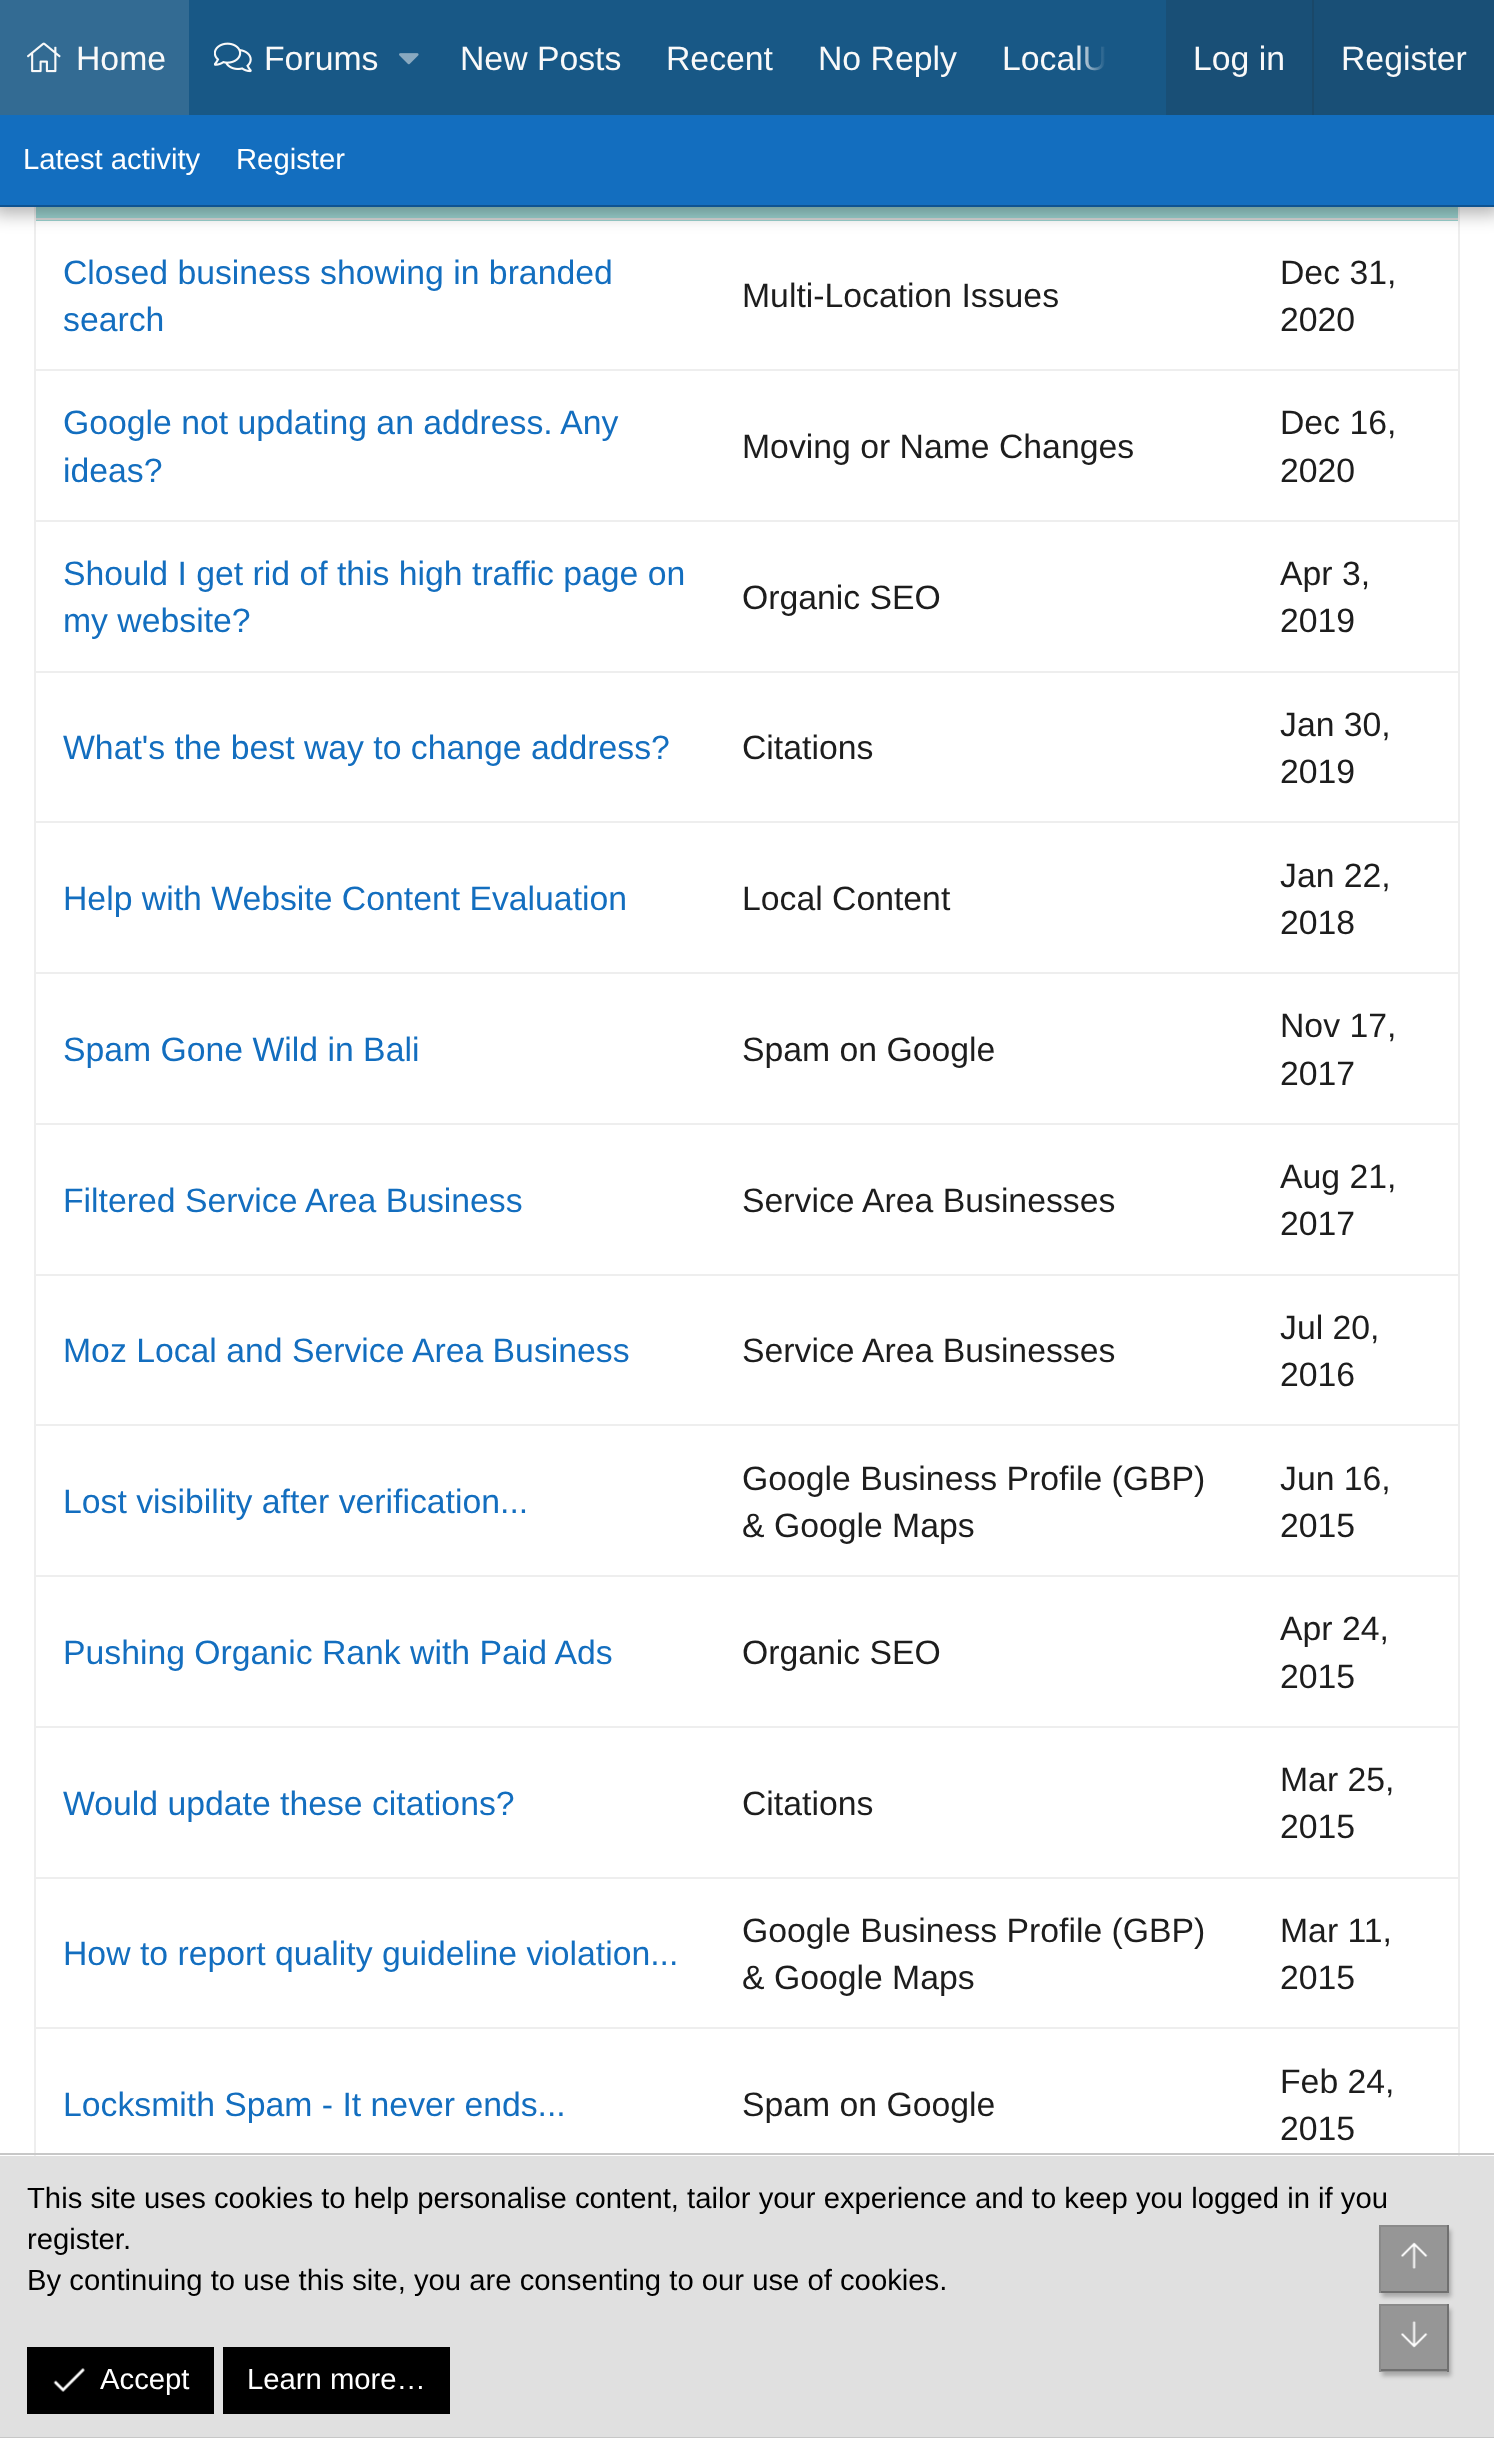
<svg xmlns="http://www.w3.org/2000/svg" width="1494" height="2438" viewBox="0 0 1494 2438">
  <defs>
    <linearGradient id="g1" gradientUnits="userSpaceOnUse" x1="1076" y1="57" x2="1166" y2="57"><stop offset="0" stop-color="rgb(24,88,134)" stop-opacity="0"/><stop offset="0.33" stop-color="rgb(24,88,134)"/></linearGradient>
    <clipPath id="clip1"><path d="M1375 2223H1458V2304H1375ZM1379 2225H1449V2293H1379Z" clip-rule="evenodd"/></clipPath>
    <clipPath id="clip2"><path d="M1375 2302H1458V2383H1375ZM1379 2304H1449V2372H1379Z" clip-rule="evenodd"/></clipPath>
  </defs>
  <rect width="100%" height="100%" fill="rgb(255,255,255)"/>
  <rect x="35" y="150" width="1424" height="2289" fill="none" stroke="rgb(238,238,238)" stroke-width="2"/>
  <rect x="36" y="207" width="1422" height="14" fill="rgb(154,209,206)"/>
  <rect x="36" y="218" width="1422" height="2" fill="rgb(213,213,213)"/>
  <rect x="-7" y="-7" width="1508" height="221" fill="rgba(0,0,0,0.3)" filter="blur(9px)"/>
  <rect x="189" y="0" width="917" height="115" fill="rgb(24,88,134)"/>
  <rect x="0" y="0" width="189" height="115" fill="rgb(51,107,147)"/>
  <image x="27" y="42" width="34" height="31" href="pic1.png"/>
  <text x="76" y="70" font-family="Liberation Sans" font-size="33.75" fill="rgb(249,249,249)">Home</text>
  <image x="214" y="42" width="38" height="31" href="pic2.png"/>
  <text x="264" y="70" font-family="Liberation Sans" font-size="33.75" fill="rgb(249,249,249)">Forums</text>
  <image x="399" y="53" width="20" height="12" href="pic3.png"/>
  <g font-family="Liberation Sans" font-size="33.75" fill="rgb(249,249,249)">
    <text x="460" y="70">New Posts</text>
    <text x="666" y="70">Recent</text>
    <text x="818" y="70">No Reply</text>
    <text x="1002" y="70">LocalU</text>
  </g>
  <rect x="1077" y="0" width="89" height="115" fill="url(#g1)"/>
  <rect x="1166" y="0" width="328" height="115" fill="rgb(25,79,118)"/>
  <text x="1193" y="70" font-family="Liberation Sans" font-size="33.75" fill="rgb(249,249,249)">Log in</text>
  <rect x="1312" y="0" width="2" height="115" fill="rgb(26,72,105)"/>
  <text x="1341" y="70" font-family="Liberation Sans" font-size="33.75" fill="rgb(249,249,249)">Register</text>
  <rect x="0" y="115" width="1494" height="90" fill="rgb(19,110,191)"/>
  <rect x="0" y="205" width="1494" height="2" fill="rgb(14,83,145)"/>
  <g font-family="Liberation Sans" font-size="29.25" fill="rgb(255,255,255)">
    <text x="23" y="169">Latest activity</text>
    <text x="236" y="169">Register</text>
  </g>
  <rect x="36" y="369" width="1422" height="2" fill="rgb(238,238,238)"/>
  <g font-family="Liberation Sans" font-size="33.75" fill="rgb(19,110,191)">
    <text>
      <tspan x="63" y="284">Closed business showing in branded</tspan>
      <tspan x="63" y="331">search</tspan>
    </text>
  </g>
  <g font-family="Liberation Sans" font-size="33.75" fill="rgb(29,29,29)">
    <text x="742" y="307">Multi-Location Issues</text>
    <text>
      <tspan x="1280" y="284">Dec 31,</tspan>
      <tspan x="1280" y="331">2020</tspan>
    </text>
  </g>
  <rect x="36" y="520" width="1422" height="2" fill="rgb(238,238,238)"/>
  <g font-family="Liberation Sans" font-size="33.75" fill="rgb(19,110,191)">
    <text>
      <tspan x="63" y="434">Google not updating an address. Any</tspan>
      <tspan x="63" y="482">ideas?</tspan>
    </text>
  </g>
  <g font-family="Liberation Sans" font-size="33.75" fill="rgb(29,29,29)">
    <text x="742" y="458">Moving or Name Changes</text>
    <text>
      <tspan x="1280" y="434">Dec 16,</tspan>
      <tspan x="1280" y="482">2020</tspan>
    </text>
  </g>
  <rect x="36" y="671" width="1422" height="2" fill="rgb(238,238,238)"/>
  <g font-family="Liberation Sans" font-size="33.75" fill="rgb(19,110,191)">
    <text>
      <tspan x="63" y="585">Should I get rid of this high traffic page on</tspan>
      <tspan x="63" y="632">my website?</tspan>
    </text>
  </g>
  <g font-family="Liberation Sans" font-size="33.75" fill="rgb(29,29,29)">
    <text x="742" y="609">Organic SEO</text>
    <text>
      <tspan x="1280" y="585">Apr 3,</tspan>
      <tspan x="1280" y="632">2019</tspan>
    </text>
  </g>
  <rect x="36" y="821" width="1422" height="2" fill="rgb(238,238,238)"/>
  <text x="63" y="759" font-family="Liberation Sans" font-size="33.75" fill="rgb(19,110,191)">What's the best way to change address?</text>
  <g font-family="Liberation Sans" font-size="33.75" fill="rgb(29,29,29)">
    <text x="742" y="759">Citations</text>
    <text>
      <tspan x="1280" y="736">Jan 30,</tspan>
      <tspan x="1280" y="783">2019</tspan>
    </text>
  </g>
  <rect x="36" y="972" width="1422" height="2" fill="rgb(238,238,238)"/>
  <text x="63" y="910" font-family="Liberation Sans" font-size="33.75" fill="rgb(19,110,191)">Help with Website Content Evaluation</text>
  <g font-family="Liberation Sans" font-size="33.75" fill="rgb(29,29,29)">
    <text x="742" y="910">Local Content</text>
    <text>
      <tspan x="1280" y="887">Jan 22,</tspan>
      <tspan x="1280" y="934">2018</tspan>
    </text>
  </g>
  <rect x="36" y="1123" width="1422" height="2" fill="rgb(238,238,238)"/>
  <text x="63" y="1061" font-family="Liberation Sans" font-size="33.75" fill="rgb(19,110,191)">Spam Gone Wild in Bali</text>
  <g font-family="Liberation Sans" font-size="33.75" fill="rgb(29,29,29)">
    <text x="742" y="1061">Spam on Google</text>
    <text>
      <tspan x="1280" y="1037">Nov 17,</tspan>
      <tspan x="1280" y="1085">2017</tspan>
    </text>
  </g>
  <rect x="36" y="1274" width="1422" height="2" fill="rgb(238,238,238)"/>
  <text x="63" y="1212" font-family="Liberation Sans" font-size="33.75" fill="rgb(19,110,191)">Filtered Service Area Business</text>
  <g font-family="Liberation Sans" font-size="33.75" fill="rgb(29,29,29)">
    <text x="742" y="1212">Service Area Businesses</text>
    <text>
      <tspan x="1280" y="1188">Aug 21,</tspan>
      <tspan x="1280" y="1235">2017</tspan>
    </text>
  </g>
  <rect x="36" y="1424" width="1422" height="2" fill="rgb(238,238,238)"/>
  <text x="63" y="1362" font-family="Liberation Sans" font-size="33.75" fill="rgb(19,110,191)">Moz Local and Service Area Business</text>
  <g font-family="Liberation Sans" font-size="33.75" fill="rgb(29,29,29)">
    <text x="742" y="1362">Service Area Businesses</text>
    <text>
      <tspan x="1280" y="1339">Jul 20,</tspan>
      <tspan x="1280" y="1386">2016</tspan>
    </text>
  </g>
  <rect x="36" y="1575" width="1422" height="2" fill="rgb(238,238,238)"/>
  <text x="63" y="1513" font-family="Liberation Sans" font-size="33.75" fill="rgb(19,110,191)">Lost visibility after verification...</text>
  <g font-family="Liberation Sans" font-size="33.75" fill="rgb(29,29,29)">
    <text>
      <tspan x="742" y="1490">Google Business Profile (GBP)</tspan>
      <tspan x="742" y="1537">&amp; Google Maps</tspan>
    </text>
    <text>
      <tspan x="1280" y="1490">Jun 16,</tspan>
      <tspan x="1280" y="1537">2015</tspan>
    </text>
  </g>
  <rect x="36" y="1726" width="1422" height="2" fill="rgb(238,238,238)"/>
  <text x="63" y="1664" font-family="Liberation Sans" font-size="33.75" fill="rgb(19,110,191)">Pushing Organic Rank with Paid Ads</text>
  <g font-family="Liberation Sans" font-size="33.75" fill="rgb(29,29,29)">
    <text x="742" y="1664">Organic SEO</text>
    <text>
      <tspan x="1280" y="1640">Apr 24,</tspan>
      <tspan x="1280" y="1688">2015</tspan>
    </text>
  </g>
  <rect x="36" y="1877" width="1422" height="2" fill="rgb(238,238,238)"/>
  <text x="63" y="1815" font-family="Liberation Sans" font-size="33.75" fill="rgb(19,110,191)">Would update these citations?</text>
  <g font-family="Liberation Sans" font-size="33.75" fill="rgb(29,29,29)">
    <text x="742" y="1815">Citations</text>
    <text>
      <tspan x="1280" y="1791">Mar 25,</tspan>
      <tspan x="1280" y="1838">2015</tspan>
    </text>
  </g>
  <rect x="36" y="2027" width="1422" height="2" fill="rgb(238,238,238)"/>
  <text x="63" y="1965" font-family="Liberation Sans" font-size="33.75" fill="rgb(19,110,191)">How to report quality guideline violation...</text>
  <g font-family="Liberation Sans" font-size="33.75" fill="rgb(29,29,29)">
    <text>
      <tspan x="742" y="1942">Google Business Profile (GBP)</tspan>
      <tspan x="742" y="1989">&amp; Google Maps</tspan>
    </text>
    <text>
      <tspan x="1280" y="1942">Mar 11,</tspan>
      <tspan x="1280" y="1989">2015</tspan>
    </text>
  </g>
  <text x="63" y="2116" font-family="Liberation Sans" font-size="33.75" fill="rgb(19,110,191)">Locksmith Spam - It never ends...</text>
  <g font-family="Liberation Sans" font-size="33.75" fill="rgb(29,29,29)">
    <text x="742" y="2116">Spam on Google</text>
    <text>
      <tspan x="1280" y="2093">Feb 24,</tspan>
      <tspan x="1280" y="2140">2015</tspan>
    </text>
  </g>
  <rect x="0" y="2156" width="1494" height="281" fill="rgb(224,224,224)"/>
  <rect x="0" y="2153" width="1494" height="2" fill="rgb(199,199,199)"/>
  <rect x="0" y="2437" width="1494" height="1" fill="rgb(199,199,199)"/>
  <g font-family="Liberation Sans" font-size="29.25" fill="rgb(0,0,0)">
    <text>
      <tspan x="27" y="2208">This site uses cookies to help personalise content, tailor your experience and to keep you logged in if you</tspan>
      <tspan x="27" y="2249">register.</tspan>
      <tspan x="27" y="2290">By continuing to use this site, you are consenting to our use of cookies.</tspan>
    </text>
  </g>
  <rect x="27" y="2347" width="187" height="67" fill="rgb(0,0,0)"/>
  <image x="53" y="2368" width="32" height="24" href="pic4.png"/>
  <text x="100" y="2389" font-family="Liberation Sans" font-size="29.25" fill="rgb(255,255,255)">Accept</text>
  <rect x="223" y="2347" width="227" height="67" fill="rgb(0,0,0)"/>
  <text x="247" y="2389" font-family="Liberation Sans" font-size="29.25" fill="rgb(255,255,255)">Learn more…</text>
  <g clip-path="url(#clip1)">
    <rect x="1382" y="2230" width="69" height="67" fill="rgba(0,0,0,0.25)" filter="blur(2px)"/>
  </g>
  <rect x="1381" y="2227" width="66" height="64" fill="rgba(125,125,125,0.75)"/>
  <rect x="1379" y="2225" width="70" height="2" fill="rgb(138,138,138)"/>
  <rect x="1447" y="2225" width="2" height="68" fill="rgb(112,112,112)"/>
  <rect x="1379" y="2291" width="70" height="2" fill="rgb(112,112,112)"/>
  <rect x="1379" y="2225" width="2" height="68" fill="rgb(138,138,138)"/>
  <image x="1401" y="2242" width="27" height="27" href="pic5.png"/>
  <g clip-path="url(#clip2)">
    <rect x="1382" y="2309" width="69" height="67" fill="rgba(0,0,0,0.25)" filter="blur(2px)"/>
  </g>
  <rect x="1381" y="2306" width="66" height="66" fill="rgba(125,125,125,0.75)"/>
  <rect x="1379" y="2304" width="70" height="2" fill="rgb(138,138,138)"/>
  <rect x="1447" y="2304" width="2" height="68" fill="rgb(112,112,112)"/>
  <rect x="1379" y="2369" width="70" height="2" fill="rgb(112,112,112)"/>
  <rect x="1379" y="2304" width="2" height="68" fill="rgb(138,138,138)"/>
  <image x="1401" y="2321" width="27" height="27" href="pic6.png"/>
</svg>
